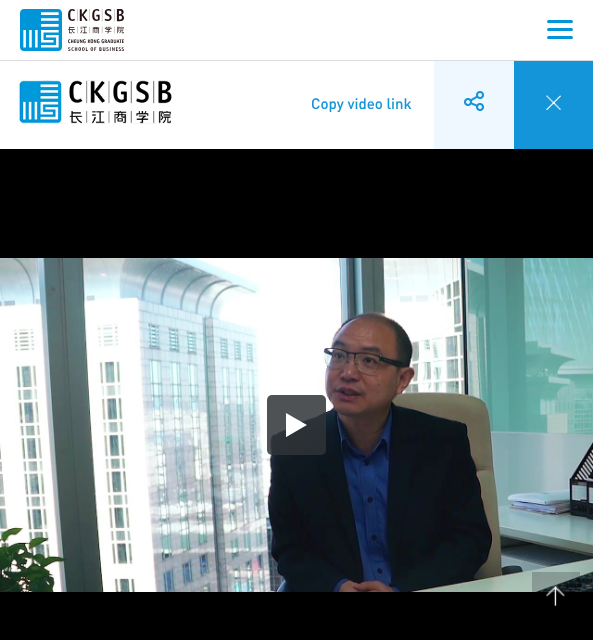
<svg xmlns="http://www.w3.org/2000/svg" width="593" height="640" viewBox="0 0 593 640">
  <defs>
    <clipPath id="clip1"><rect x="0" y="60" width="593" height="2"/></clipPath>
  </defs>
  <rect width="100%" height="100%" fill="rgb(255,255,255)"/>
  <rect x="434" y="60" width="80" height="89" fill="rgb(239,247,255)"/>
  <rect x="514" y="60" width="79" height="89" fill="rgb(20,149,217)"/>
  <g clip-path="url(#clip1)">
    <rect x="0" y="1" width="593" height="60" fill="rgb(221,221,221)" filter="blur(0.5px)"/>
  </g>
  <image x="20" y="9" width="104" height="42" href="pic1.png"/>
  <rect x="547" y="20" width="26" height="3" rx="1.5" fill="rgb(0,149,216)"/>
  <rect x="547" y="28" width="26" height="3" rx="1.5" fill="rgb(0,149,216)"/>
  <rect x="547" y="36" width="26" height="3" rx="1.5" fill="rgb(0,149,216)"/>
  <image x="18" y="80" width="154" height="44" href="pic2.png"/>
  <text x="311" y="109" font-family="DIN" font-size="15" font-weight="500" fill="rgb(20,149,217)">Copy video link</text>
  <image x="464" y="91" width="20" height="20" href="pic3.png"/>
  <image x="546" y="95" width="15" height="15" href="pic4.png"/>
  <image x="0" y="149" width="593" height="491" href="pic5.png"/>
  <image x="532" y="572" width="48" height="34" href="pic6.png"/>
</svg>
